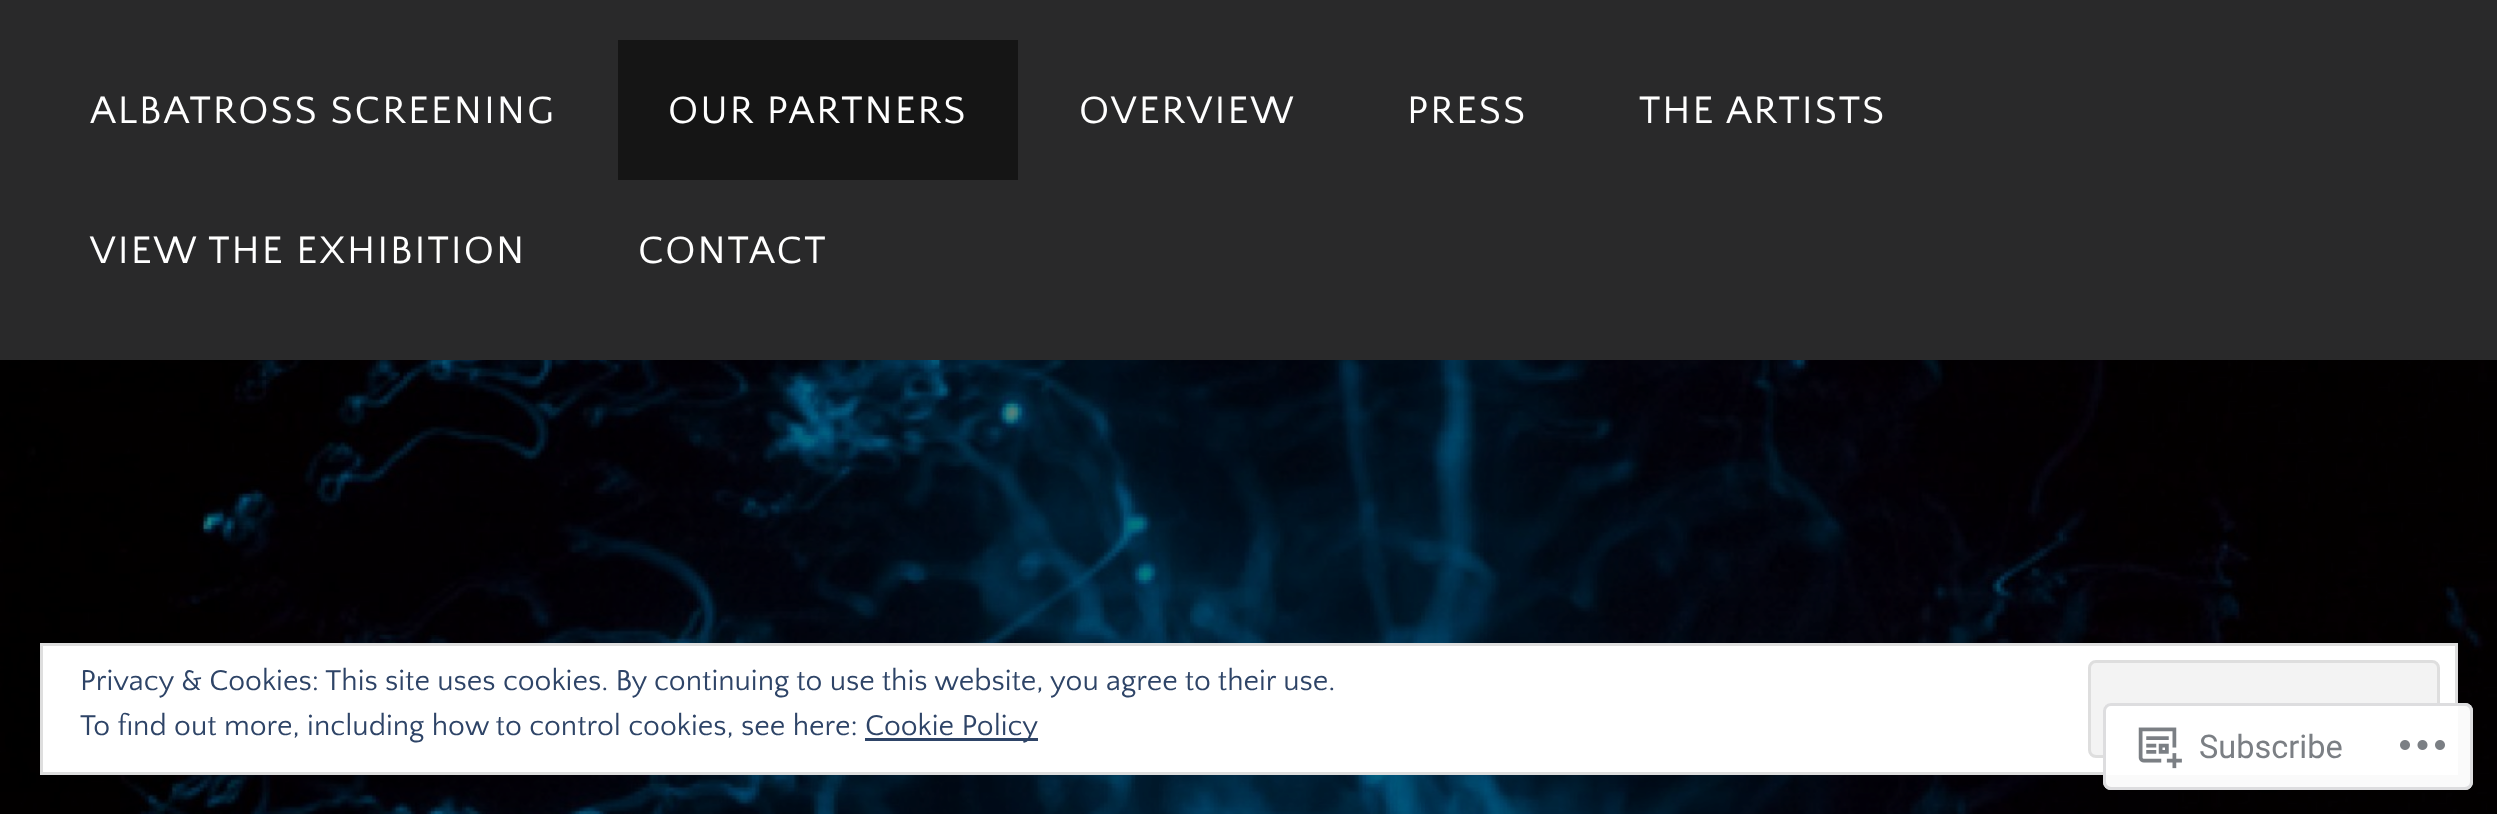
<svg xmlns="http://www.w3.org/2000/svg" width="2497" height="814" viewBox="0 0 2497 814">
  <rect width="100%" height="100%" fill="rgb(255,255,255)"/>
  <rect x="0" y="0" width="2497" height="360" fill="rgb(41,41,42)"/>
  <text x="90" y="123" font-family="Quattrocento Sans" font-size="40" letter-spacing="2" fill="rgb(255,255,255)">ALBATROSS SCREENING</text>
  <rect x="618" y="40" width="400" height="140" fill="rgb(21,21,21)"/>
  <g font-family="Quattrocento Sans" font-size="40" letter-spacing="2" fill="rgb(255,255,255)">
    <text x="668" y="123">OUR PARTNERS</text>
    <text x="1079" y="123">OVERVIEW</text>
    <text x="1407" y="123">PRESS</text>
    <text x="1639" y="123">THE ARTISTS</text>
    <text x="90" y="263">VIEW THE EXHIBITION</text>
    <text x="638" y="263">CONTACT</text>
  </g>
  <image x="0" y="360" width="2497" height="454" href="pic1.png"/>
  <rect x="41.5" y="644.5" width="2415" height="129" fill="rgb(255,255,255)" stroke="rgb(222,222,222)" stroke-width="3"/>
  <text x="80" y="690" font-family="Quattrocento Sans" font-size="30" fill="rgb(46,68,103)">Privacy &amp; Cookies: This site uses cookies. By continuing to use this website, you agree to their use.</text>
  <rect x="2089.5" y="661.5" width="349" height="95" rx="6.5" fill="rgb(243,243,243)" stroke="rgb(222,222,222)" stroke-width="3"/>
  <text x="80" y="735" font-family="Quattrocento Sans" font-size="30" fill="rgb(46,68,103)">To find out more, including how to control cookies, see here:</text>
  <rect x="865" y="738" width="173" height="3" fill="rgb(46,68,103)"/>
  <text x="865" y="735" font-family="Quattrocento Sans" font-size="30" fill="rgb(46,68,103)">Cookie Policy</text>
  <rect x="2103" y="703" width="370" height="87" rx="8" fill="rgba(255,255,255,0.98)"/>
  <rect x="2104.5" y="704.5" width="367" height="84" rx="6.5" fill="none" stroke="rgba(220,220,222,0.98)" stroke-width="3"/>
  <image x="2138" y="727" width="44" height="42" href="pic2.png"/>
  <text x="2199" y="758" font-family="Roboto" font-size="32.5" fill="rgb(123,127,132)">Subscribe</text>
  <image x="2400" y="740" width="45" height="10" href="pic3.png"/>
</svg>
